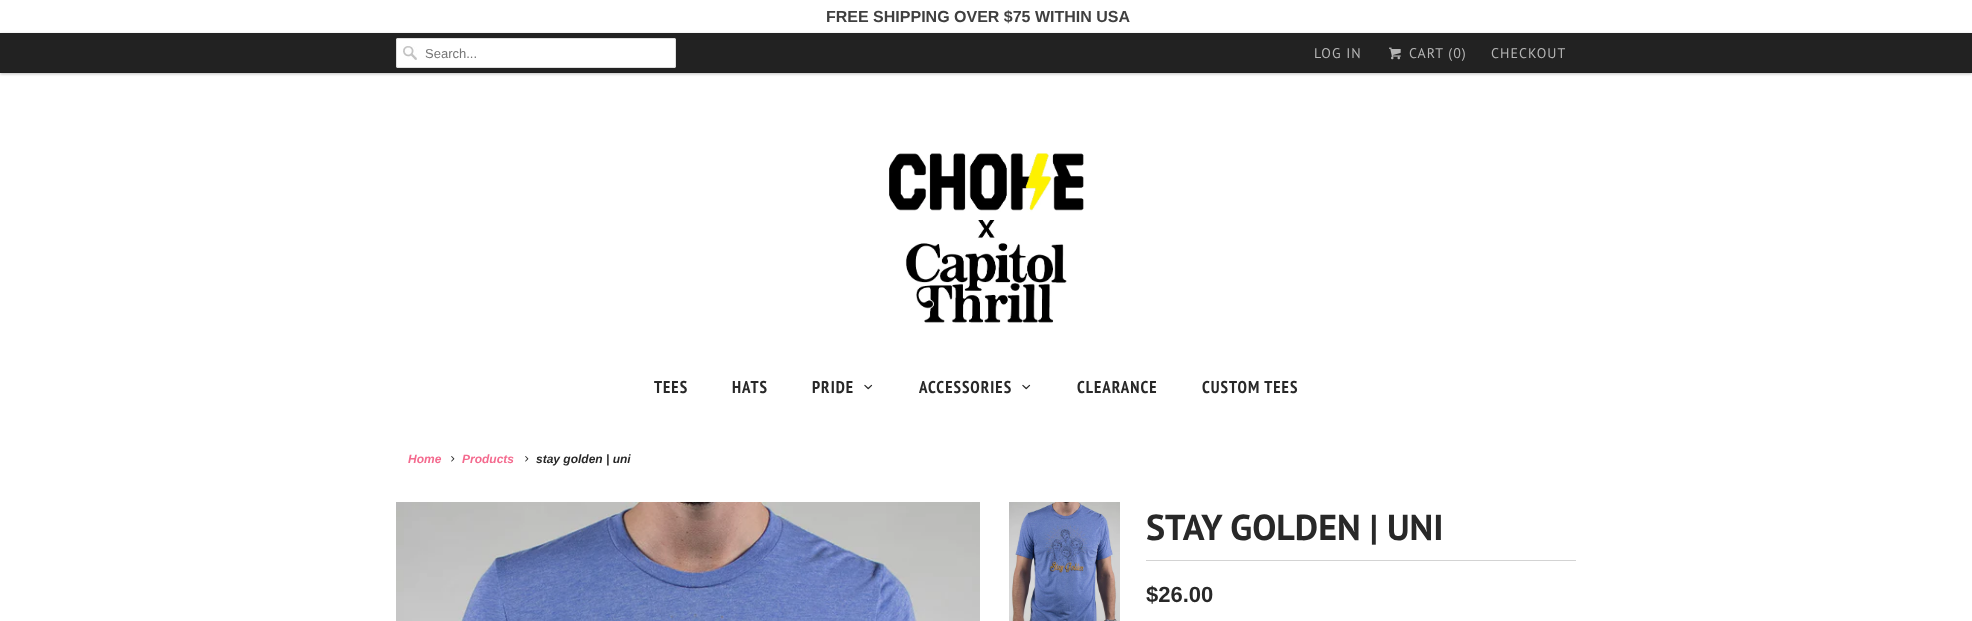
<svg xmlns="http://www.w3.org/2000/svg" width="1972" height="621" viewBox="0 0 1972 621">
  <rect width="100%" height="100%" fill="rgb(255,255,255)"/>
  <text x="826" y="22" font-family="Liberation Sans" font-size="16" font-weight="bold" fill="rgb(64,64,64)">FREE SHIPPING OVER $75 WITHIN USA</text>
  <rect x="0" y="34" width="1972" height="40" fill="rgba(0,0,0,0.25)" filter="blur(1.5px)"/>
  <rect x="0" y="33" width="1972" height="39" fill="rgb(34,34,34)"/>
  <rect x="0" y="72" width="1972" height="1" fill="rgb(31,31,31)"/>
  <rect x="396" y="38" width="280" height="30" rx="2" fill="rgb(255,255,255)"/>
  <image x="403" y="46" width="14" height="14" href="pic1.png"/>
  <rect x="396.5" y="38.5" width="279" height="29" rx="1.5" fill="none" stroke="rgb(223,223,223)"/>
  <text x="425" y="58" font-family="Liberation Sans" font-size="13" fill="rgb(117,117,117)">Search...</text>
  <text x="1314" y="58" font-family="PT Sans" font-size="14" letter-spacing="1" fill="rgb(182,182,182)">LOG IN</text>
  <image x="1389" y="47" width="12" height="13" href="pic2.png"/>
  <g font-family="PT Sans" font-size="14" letter-spacing="1" fill="rgb(182,182,182)">
    <text x="1409" y="58">CART (0)</text>
    <text x="1491" y="58">CHECKOUT</text>
  </g>
  <image x="889" y="153" width="195" height="170" href="pic3.png"/>
  <g font-family="PT Sans Narrow" font-size="17" font-weight="bold" letter-spacing="1" fill="rgb(40,40,40)">
    <text x="654" y="393">TEES</text>
    <text x="732" y="393">HATS</text>
    <text x="812" y="393">PRIDE</text>
  </g>
  <image x="864" y="384" width="9" height="6" href="pic4.png"/>
  <text x="919" y="393" font-family="PT Sans Narrow" font-size="17" font-weight="bold" letter-spacing="1" fill="rgb(40,40,40)">ACCESSORIES</text>
  <image x="1022" y="384" width="9" height="6" href="pic4.png"/>
  <g font-family="PT Sans Narrow" font-size="17" font-weight="bold" letter-spacing="1" fill="rgb(40,40,40)">
    <text x="1077" y="393">CLEARANCE</text>
    <text x="1202" y="393">CUSTOM TEES</text>
  </g>
  <text x="408" y="463" font-family="Liberation Sans" font-size="12" font-weight="bold" font-style="italic" fill="rgb(244,107,143)">Home</text>
  <image x="451" y="456" width="4" height="6" href="pic5.png"/>
  <text x="462" y="463" font-family="Liberation Sans" font-size="12" font-weight="bold" font-style="italic" fill="rgb(244,107,143)">Products</text>
  <image x="525" y="456" width="4" height="6" href="pic5.png"/>
  <text x="536" y="463" font-family="Liberation Sans" font-size="12" font-weight="bold" font-style="italic" fill="rgb(40,40,40)">stay golden | uni</text>
  <image x="396" y="502" width="584" height="119" href="pic6.png"/>
  <image x="1009" y="502" width="111" height="119" href="pic7.png"/>
  <rect x="1146" y="560" width="430" height="1" fill="rgb(211,211,211)"/>
  <text x="1146" y="540" font-family="PT Sans" font-size="36" font-weight="bold" fill="rgb(40,40,40)">STAY GOLDEN | UNI</text>
  <text x="1146" y="602" font-family="Liberation Sans" font-size="22" font-weight="bold" fill="rgb(40,40,40)">$26.00</text>
</svg>
